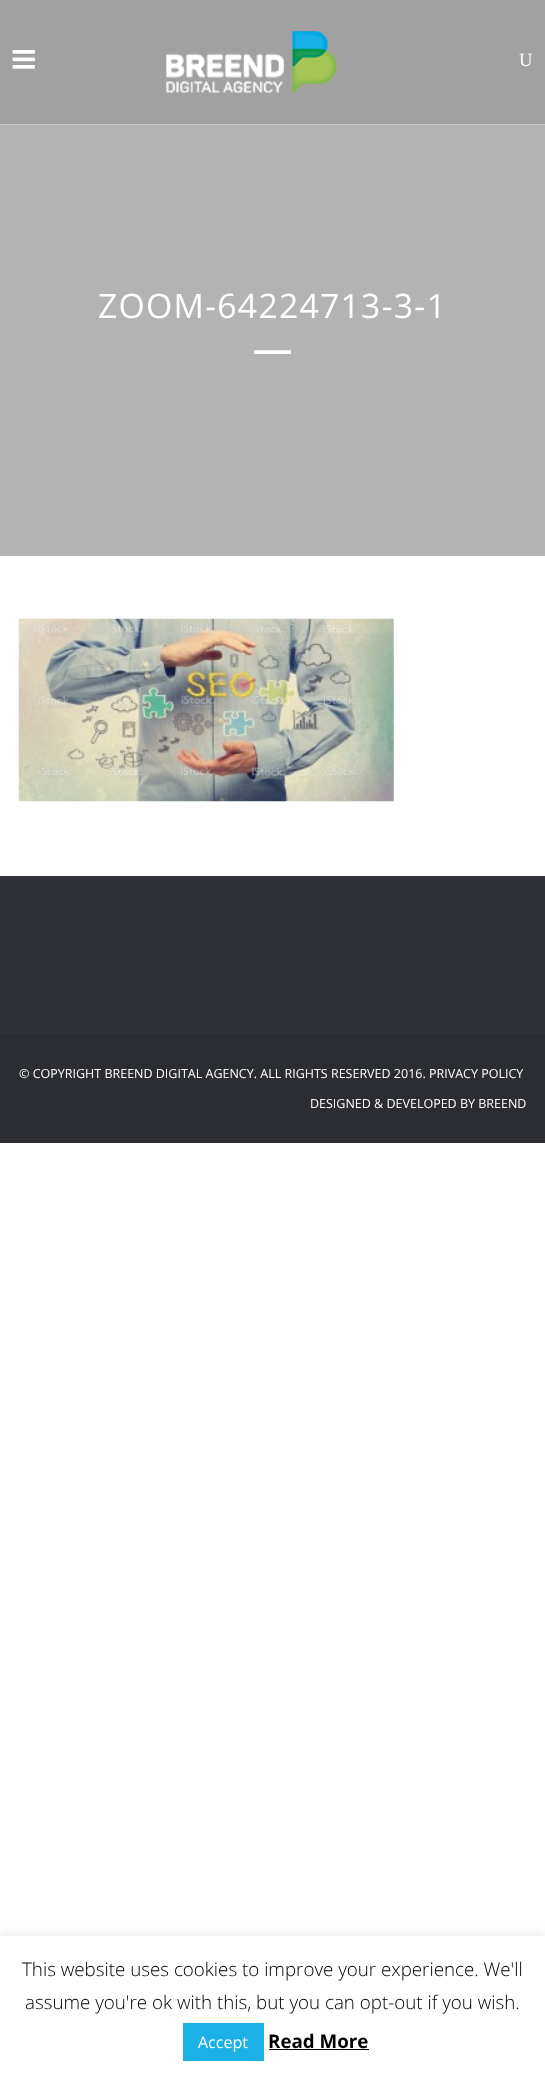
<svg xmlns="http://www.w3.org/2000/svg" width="545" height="2076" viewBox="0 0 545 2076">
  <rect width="100%" height="100%" fill="rgb(255,255,255)"/>
  <rect x="0" y="124" width="545" height="1" fill="rgb(194,194,194)"/>
  <rect x="0" y="0" width="545" height="124" fill="rgb(161,161,161)"/>
  <image x="12" y="50" width="23" height="19" href="pic1.png"/>
  <image x="166" y="31" width="171" height="62" href="pic2.png"/>
  <text x="519" y="66" font-family="Liberation Serif" font-size="18.75" fill="rgb(255,255,255)">U</text>
  <rect x="0" y="125" width="545" height="431" fill="rgb(179,179,179)"/>
  <text x="98" y="318" font-family="Open Sans" font-size="33.75" letter-spacing="1.25" fill="rgb(255,255,255)">ZOOM-64224713-3-1</text>
  <rect x="254" y="351" width="37" height="3" fill="rgb(255,255,255)"/>
  <rect x="254" y="350" width="37" height="1" fill="rgb(238,238,238)"/>
  <image x="18" y="618" width="376" height="184" href="pic3.png"/>
  <rect x="0" y="876" width="545" height="157" fill="rgb(48,50,55)"/>
  <rect x="0" y="1033" width="545" height="110" fill="rgb(43,45,50)"/>
  <g font-family="Open Sans" font-size="12.5" fill="rgb(255,255,255)">
    <text x="19" y="1078">© COPYRIGHT BREEND DIGITAL AGENCY. ALL RIGHTS RESERVED 2016. PRIVACY POLICY</text>
    <text x="310" y="1108">DESIGNED &amp; DEVELOPED BY BREEND</text>
  </g>
  <rect x="0" y="1935" width="545" height="140" fill="rgba(172,171,171,0.3)" filter="blur(6px)"/>
  <rect x="0" y="1936" width="545" height="140" fill="rgb(255,255,255)"/>
  <g font-family="Open Sans" font-size="18.75" font-weight="300" fill="rgb(0,0,0)">
    <text x="22" y="1976">This website uses cookies to improve your experience. We'll</text>
    <text x="25" y="2009">assume you're ok with this, but you can opt-out if you wish.</text>
  </g>
  <rect x="183" y="2023" width="81" height="38" fill="rgb(27,177,231)"/>
  <text x="198" y="2048" font-family="Open Sans" font-size="16" fill="rgb(255,255,255)">Accept</text>
  <text x="268" y="2048" font-family="Open Sans" font-size="18.75" font-weight="bold" fill="rgb(0,0,0)">Read More</text>
  <rect x="269" y="2049" width="100" height="1" fill="rgb(0,0,0)"/>
</svg>
